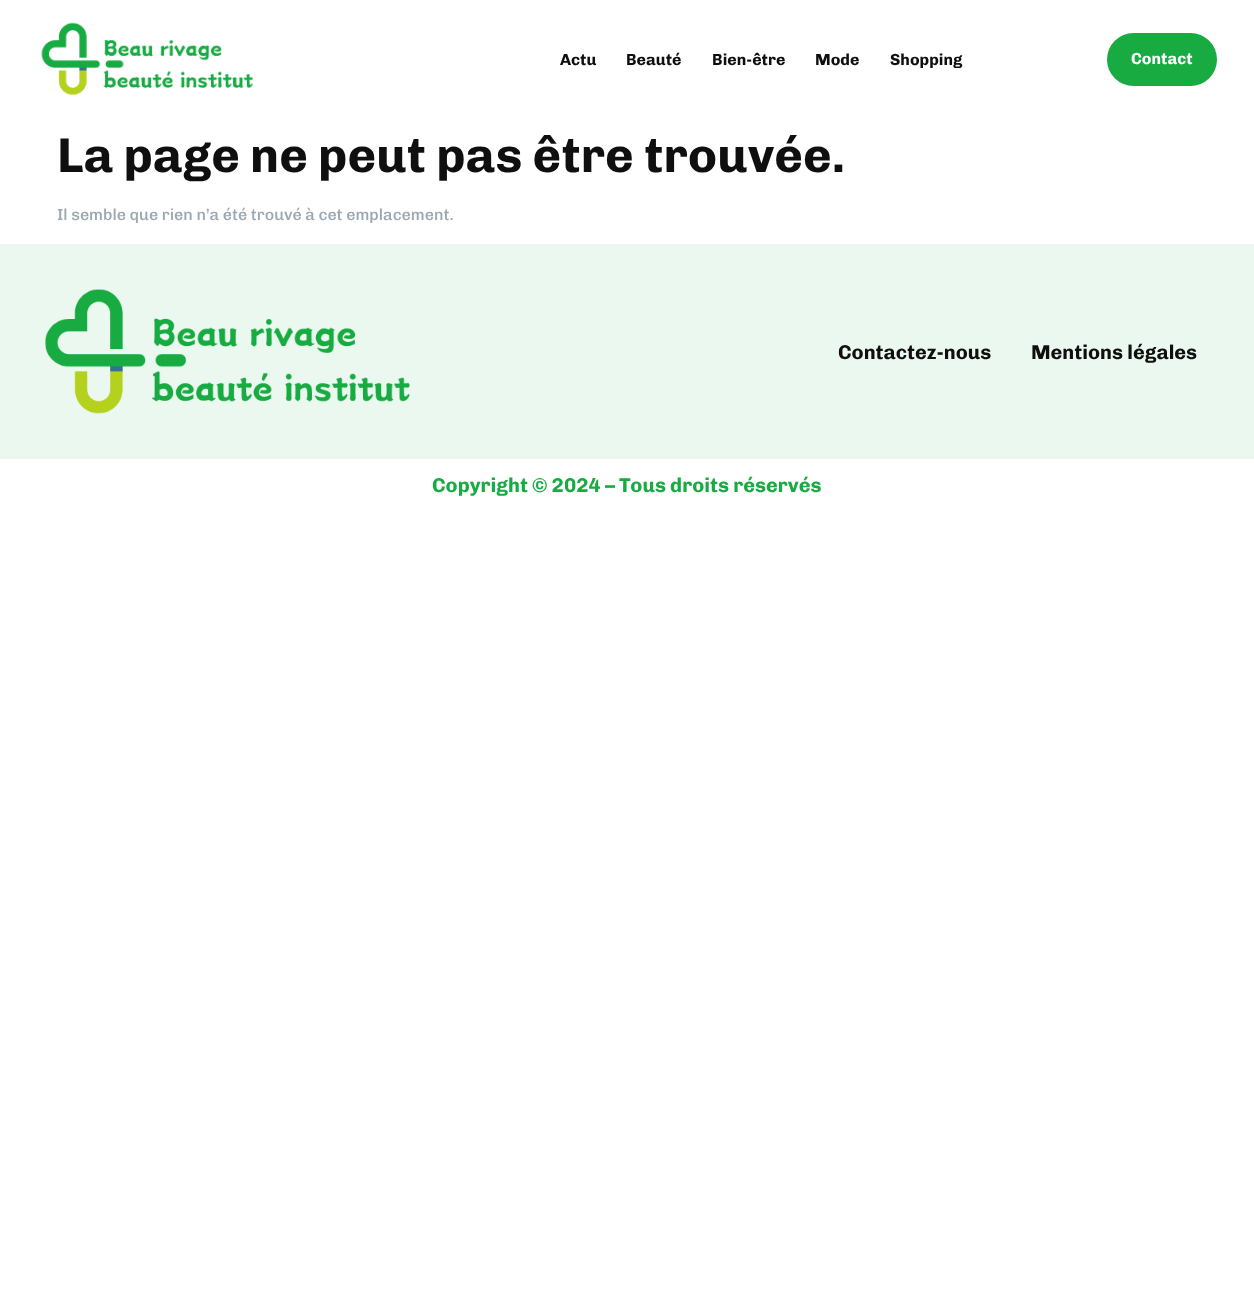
<svg xmlns="http://www.w3.org/2000/svg" width="1254" height="1309" viewBox="0 0 1254 1309">
  <rect width="100%" height="100%" fill="rgb(255,255,255)"/>
  <image x="41" y="22" width="213" height="74" href="pic1.png"/>
  <g font-family="Chivo" font-size="16" font-weight="bold" fill="rgb(15,15,15)">
    <text x="560" y="65">Actu</text>
    <text x="626" y="65">Beauté</text>
    <text x="712" y="65">Bien-être</text>
    <text x="815" y="65">Mode</text>
    <text x="890" y="65">Shopping</text>
  </g>
  <rect x="1107" y="33" width="110" height="53" rx="26.5" fill="rgb(23,171,66)"/>
  <text x="1131" y="64" font-family="Chivo" font-size="16" font-weight="bold" fill="rgb(255,255,255)">Contact</text>
  <text x="57" y="172" font-family="Chivo" font-size="48.8" font-weight="bold" fill="rgb(15,15,15)">La page ne peut pas être trouvée.</text>
  <text x="57" y="220" font-family="Chivo" font-size="16" font-weight="500" fill="rgb(155,167,177)">Il semble que rien n’a été trouvé à cet emplacement.</text>
  <rect x="0" y="244" width="1254" height="215" fill="rgb(235,248,239)"/>
  <image x="45" y="289" width="365" height="125" href="pic2.png"/>
  <g font-family="Chivo" font-size="20" font-weight="bold" fill="rgb(15,15,15)">
    <text x="838" y="359">Contactez-nous</text>
    <text x="1031" y="359">Mentions légales</text>
  </g>
  <text x="432" y="492" font-family="Chivo" font-size="20" font-weight="bold" fill="rgb(23,171,66)">Copyright © 2024 – Tous droits réservés</text>
</svg>
